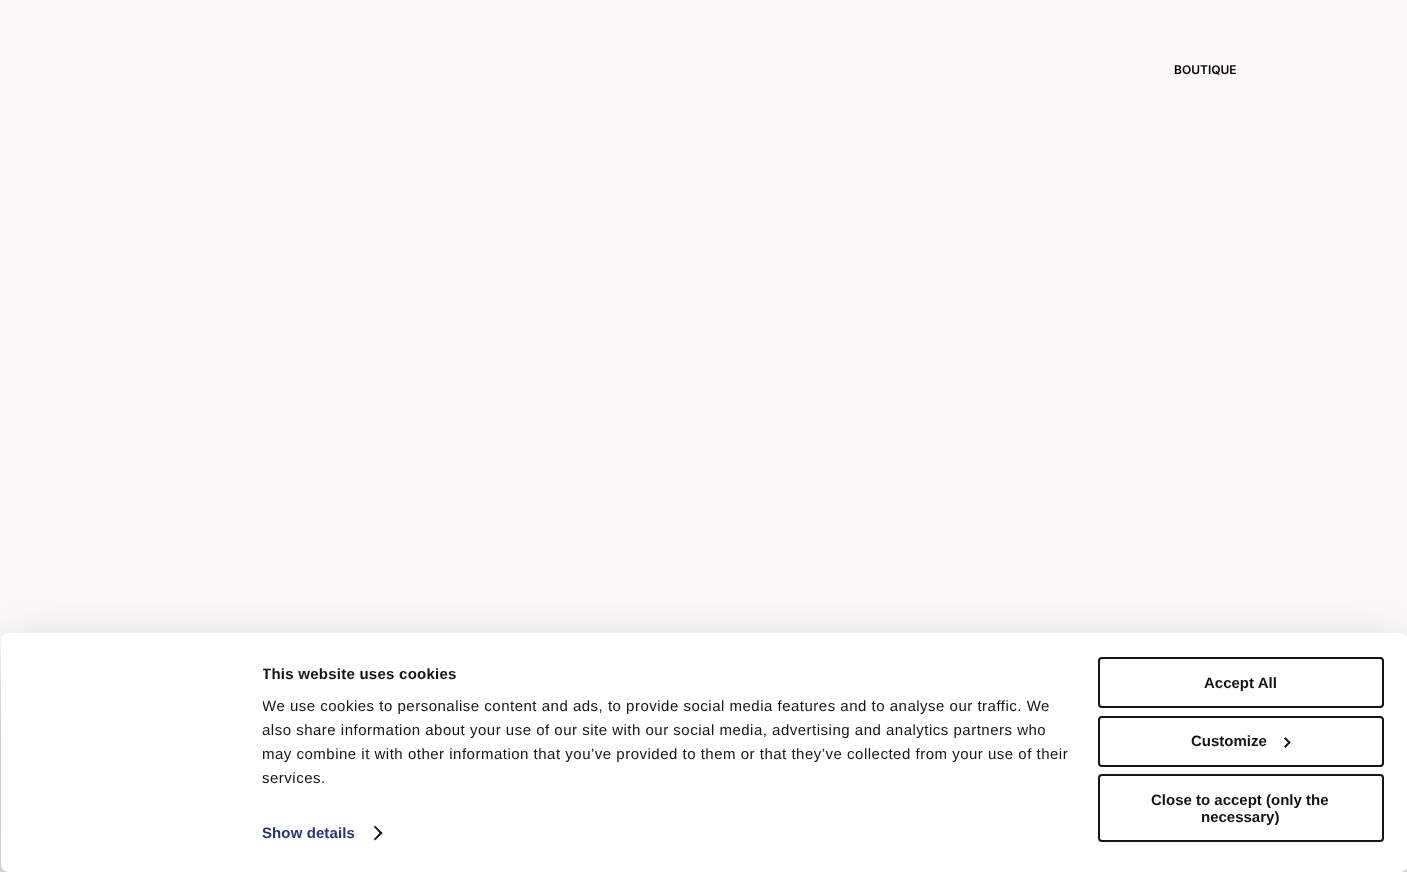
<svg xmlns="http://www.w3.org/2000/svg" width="1407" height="872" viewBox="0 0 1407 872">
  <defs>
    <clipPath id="clip1"><rect x="263" y="663" width="829" height="127"/></clipPath>
  </defs>
  <rect width="100%" height="100%" fill="rgb(252,250,247)"/>
  <text x="1174" y="74" font-family="Inter" font-size="12" font-weight="600" fill="rgb(0,0,0)">BOUTIQUE</text>
  <rect x="0" y="735" width="1407" height="137" fill="rgb(240,240,240)"/>
  <rect x="1" y="663" width="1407" height="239" rx="8" fill="rgba(0,0,0,0.3)" filter="blur(35px)"/>
  <rect x="1" y="633" width="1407" height="239" rx="8" fill="rgb(255,255,255)"/>
  <g clip-path="url(#clip1)">
    <text x="262" y="679" font-family="Liberation Sans" font-size="15" font-weight="bold" letter-spacing="0.25" fill="rgb(20,20,20)">This website uses cookies</text>
    <text x="262" y="711" font-family="Liberation Sans" font-size="15" letter-spacing="0.5" fill="rgb(20,20,20)">We use cookies to personalise content and ads, to provide social media features and to analyse our traffic. We</text>
  </g>
  <g font-family="Liberation Sans" font-size="15" letter-spacing="0.5" fill="rgb(20,20,20)">
    <text>
      <tspan x="262" y="735">also share information about your use of our site with our social media, advertising and analytics partners who</tspan>
      <tspan x="262" y="759">may combine it with other information that you’ve provided to them or that they’ve collected from your use of their</tspan>
      <tspan x="262" y="783">services.</tspan>
    </text>
  </g>
  <text x="262" y="838" font-family="Liberation Sans" font-size="15" font-weight="bold" letter-spacing="0.1" fill="rgb(39,52,119)">Show details</text>
  <path d="M375 825.5L382.5 833L381 834.5L374 827Z" fill="rgb(20,20,20)"/>
  <path d="M381 831.5L382.5 833L375 840.5L374 839Z" fill="rgb(20,20,20)"/>
  <rect x="1099" y="658" width="284" height="49" rx="3" fill="none" stroke="rgb(20,20,20)" stroke-width="2"/>
  <text x="1204" y="688" font-family="Liberation Sans" font-size="15" font-weight="bold" fill="rgb(20,20,20)">Accept All</text>
  <rect x="1099" y="717" width="284" height="49" rx="3" fill="none" stroke="rgb(20,20,20)" stroke-width="2"/>
  <text x="1191" y="746" font-family="Liberation Sans" font-size="15" font-weight="bold" fill="rgb(20,20,20)">Customize</text>
  <path d="M1285.5 737L1290.5 742.5L1289.5 744L1284 738.5Z" fill="rgb(20,20,20)"/>
  <path d="M1289.5 741L1290.5 742.5L1285.5 748L1284 746.5Z" fill="rgb(20,20,20)"/>
  <rect x="1099" y="775" width="284" height="66" rx="3" fill="none" stroke="rgb(20,20,20)" stroke-width="2"/>
  <g font-family="Liberation Sans" font-size="15" font-weight="bold" fill="rgb(20,20,20)">
    <text x="1151" y="805">Close to accept (only the</text>
    <text x="1201" y="822">necessary)</text>
  </g>
</svg>
